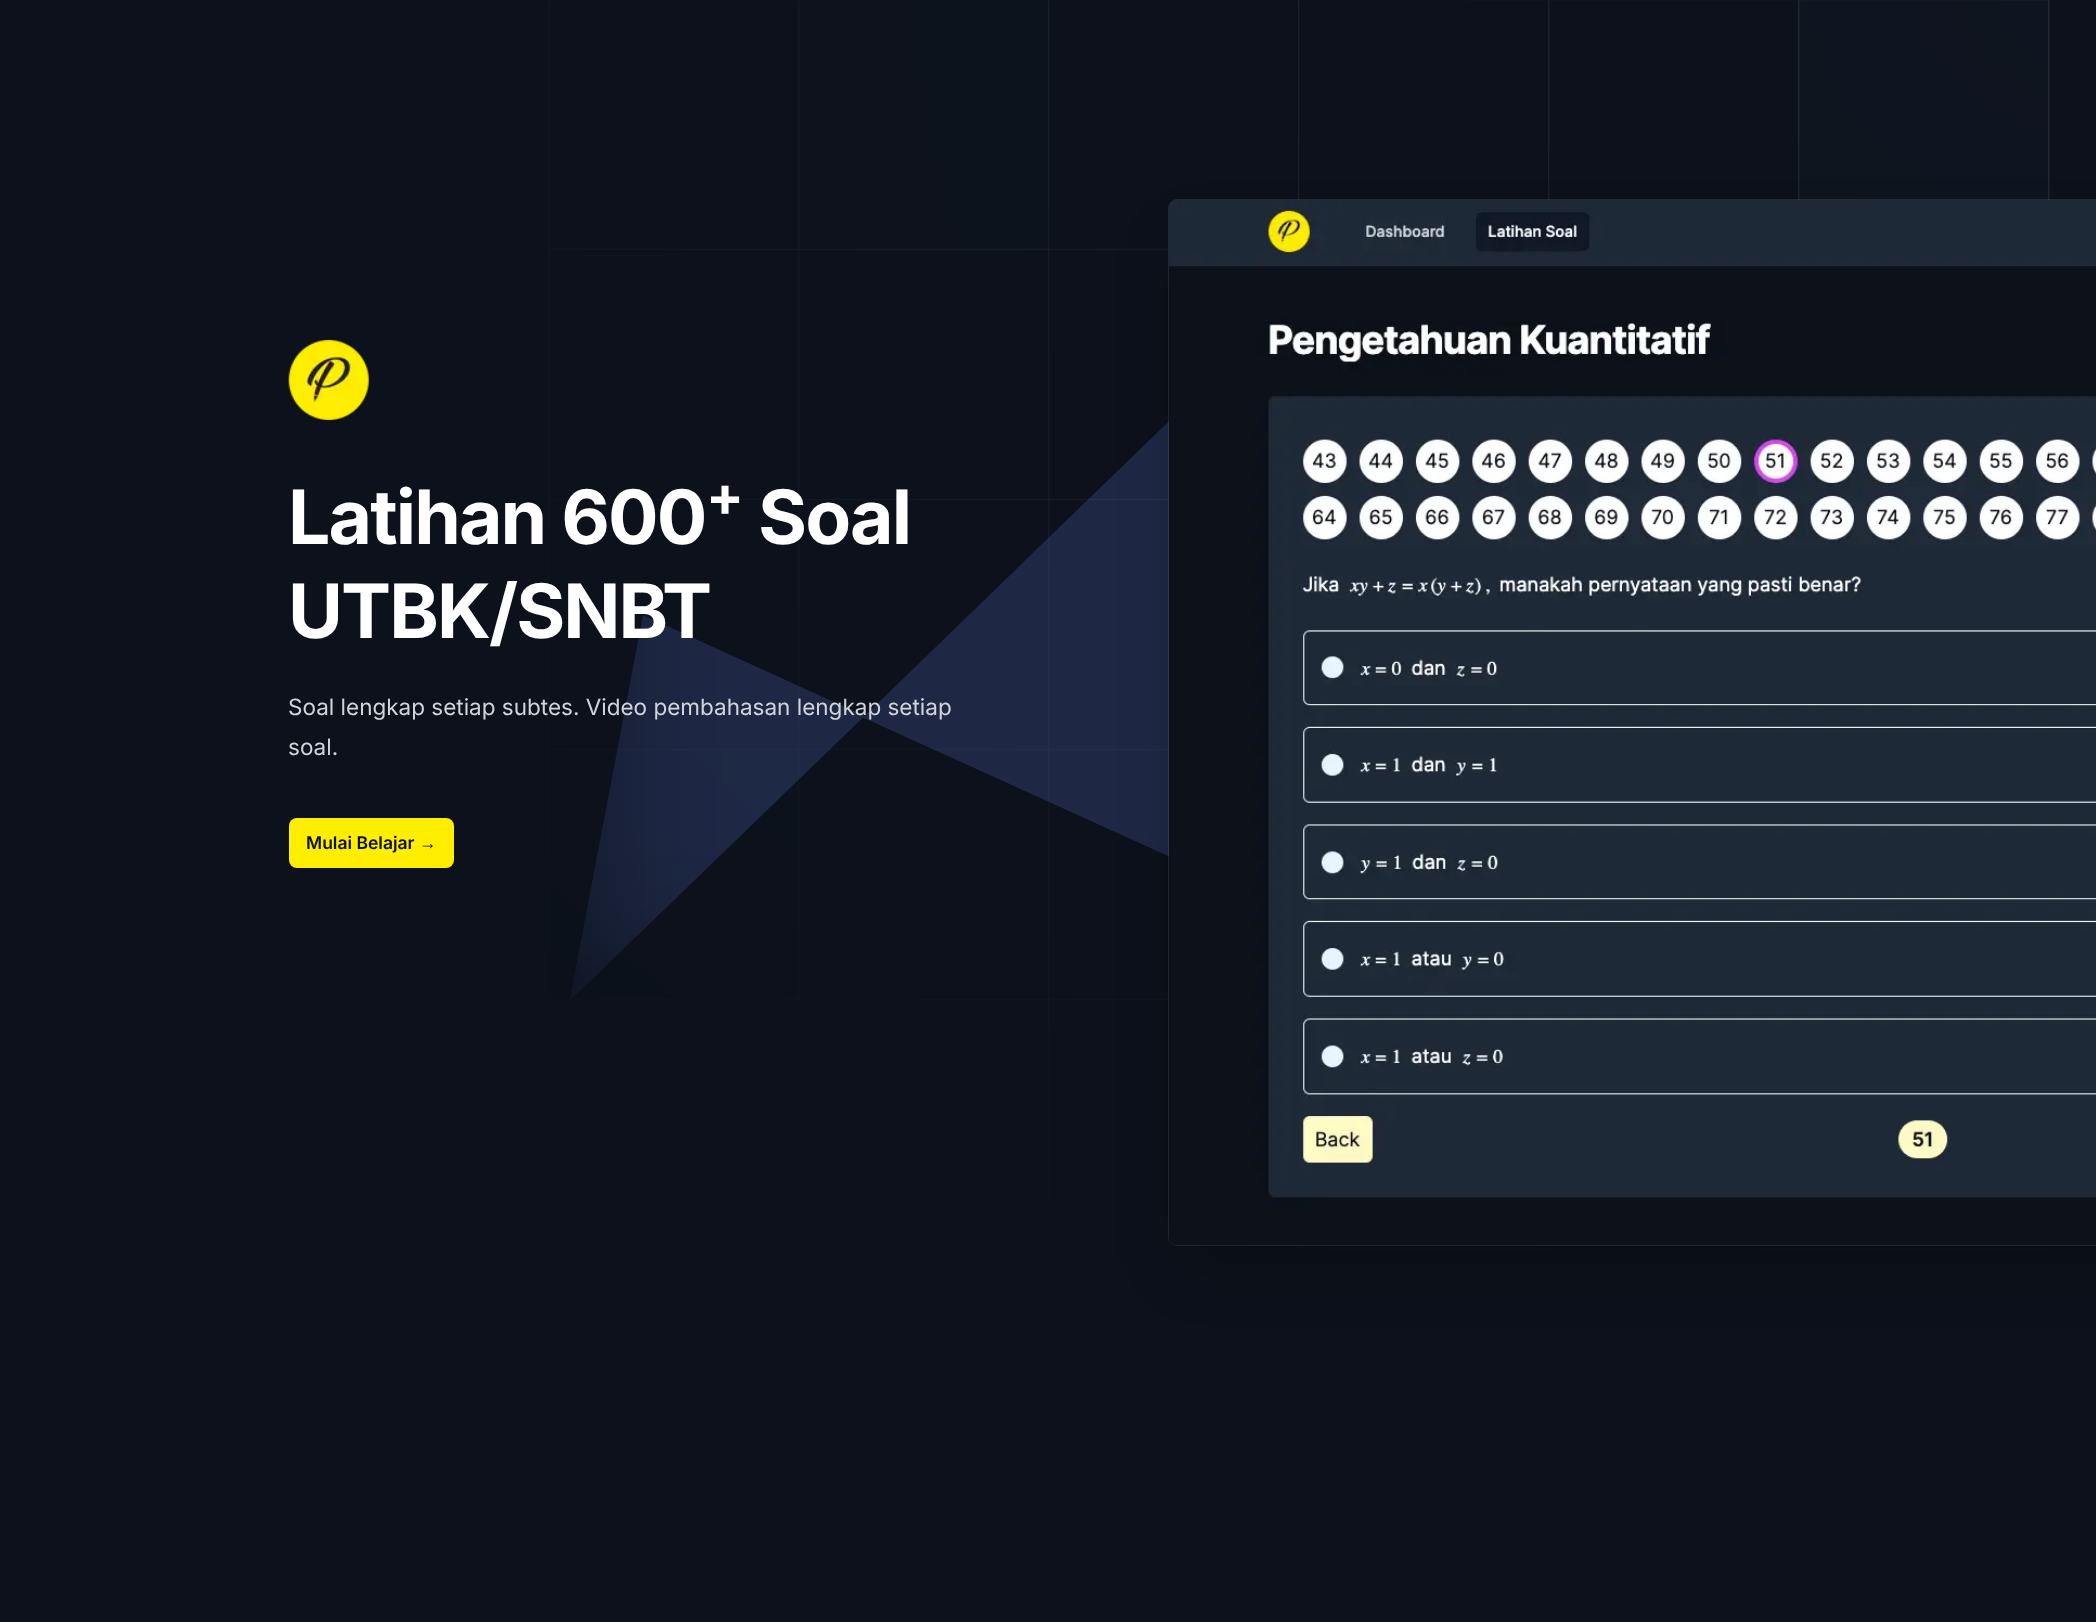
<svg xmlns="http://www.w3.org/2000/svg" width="2096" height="1622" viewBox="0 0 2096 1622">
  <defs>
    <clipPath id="clip1"><path d="M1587.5 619.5L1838 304.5L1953 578L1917 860.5L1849 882L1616.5 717L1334 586.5L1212 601.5L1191.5 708L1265 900L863 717.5L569.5 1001L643 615L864.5 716L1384 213Z"/></clipPath>
  </defs>
  <rect width="100%" height="100%" fill="rgb(12,17,27)"/>
  <image x="548" y="0" width="1503" height="1250" href="pic1.png"/>
  <g clip-path="url(#clip1)">
    <rect x="569" y="211" width="1385" height="790" fill="rgba(104,136,242,0.2)" filter="blur(80px)"/>
  </g>
  <image x="288" y="340" width="81" height="80" href="pic2.png"/>
  <text x="288" y="544" font-family="Inter" font-size="75" font-weight="bold" letter-spacing="-1.9" fill="rgb(255,255,255)">Latihan 600</text>
  <text x="706" y="516" font-family="Inter" font-size="56" font-weight="bold" letter-spacing="-1.9" fill="rgb(255,255,255)">+</text>
  <g font-family="Inter" font-size="75" font-weight="bold" letter-spacing="-1.9" fill="rgb(255,255,255)">
    <text x="758" y="544">Soal</text>
    <text x="288" y="638">UTBK/SNBT</text>
  </g>
  <g font-family="Inter" font-size="22.5" fill="rgb(209,213,219)">
    <text>
      <tspan x="288" y="715">Soal lengkap setiap subtes. Video pembahasan lengkap setiap</tspan>
      <tspan x="288" y="755">soal.</tspan>
    </text>
  </g>
  <rect x="289" y="818" width="165" height="50" rx="8" fill="rgb(255,238,0)"/>
  <text x="306" y="849" font-family="Inter" font-size="17.5" font-weight="600" fill="rgb(12,17,27)">Mulai Belajar</text>
  <text x="419" y="849" font-family="Liberation Serif" font-size="17.5" font-weight="bold" fill="rgb(12,17,27)">→</text>
  <rect x="1184" y="246" width="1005" height="1015" fill="rgba(0,0,0,0.25)" filter="blur(31px)"/>
  <rect x="1168.5" y="199.5" width="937" height="1046" rx="8.5" fill="none" stroke="rgba(255,255,255,0.1)"/>
  <image x="1168" y="200" width="928" height="1045" href="pic3.png"/>
</svg>
